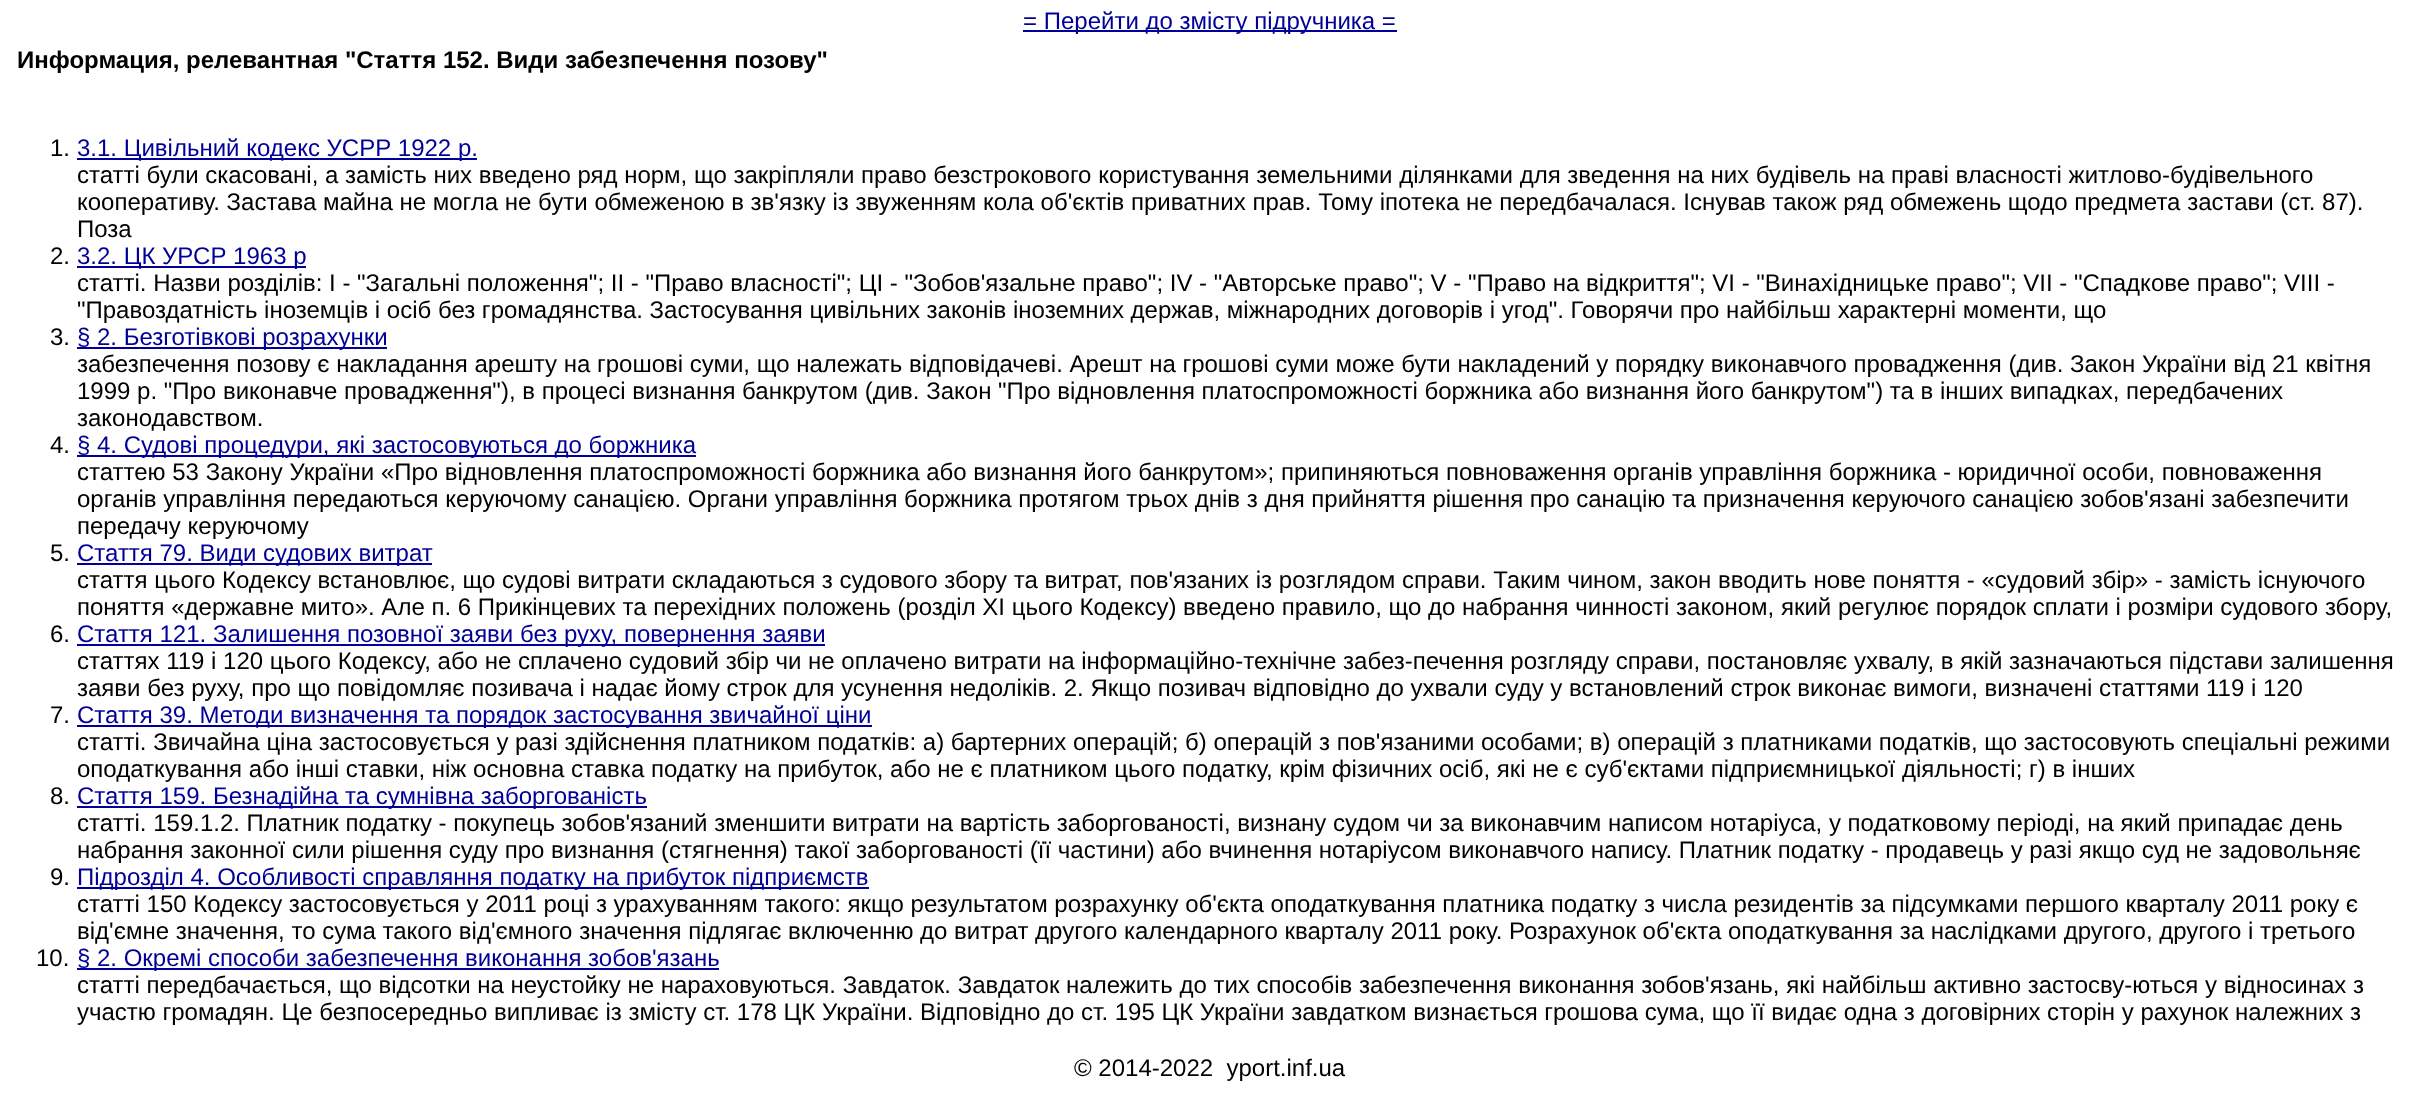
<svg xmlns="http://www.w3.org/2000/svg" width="2419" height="1093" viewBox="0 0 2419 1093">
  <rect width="100%" height="100%" fill="rgb(255,255,255)"/>
  <rect x="1023" y="30" width="374" height="2" fill="rgb(0,0,153)"/>
  <text x="1023" y="29" font-family="Liberation Sans" font-size="24" fill="rgb(0,0,153)">= Перейти до змісту підручника =</text>
  <text x="17" y="68" font-family="Liberation Sans" font-size="24" font-weight="bold" fill="rgb(0,0,0)">Информация, релевантная "Стаття 152. Види забезпечення позову"</text>
  <text x="50" y="156" font-family="Liberation Sans" font-size="24" fill="rgb(0,0,0)">1.</text>
  <rect x="77" y="158" width="400" height="2" fill="rgb(0,0,153)"/>
  <text x="77" y="156" font-family="Liberation Sans" font-size="24" fill="rgb(0,0,153)">3.1. Цивільний кодекс УСРР 1922 р.</text>
  <g font-family="Liberation Sans" font-size="24" fill="rgb(0,0,0)">
    <text>
      <tspan x="77" y="183">статті були скасовані, а замість них введено ряд норм, що закріпляли право безстрокового користування земельними ділянками для зведення на них будівель на праві власності житлово-будівельного</tspan>
      <tspan x="77" y="210">кооперативу. Застава майна не могла не бути обмеженою в зв'язку із звуженням кола об'єктів приватних прав. Тому іпотека не передбачалася. Існував також ряд обмежень щодо предмета застави (ст. 87).</tspan>
      <tspan x="77" y="237">Поза</tspan>
    </text>
    <text x="50" y="264">2.</text>
  </g>
  <rect x="77" y="266" width="229" height="2" fill="rgb(0,0,153)"/>
  <text x="77" y="264" font-family="Liberation Sans" font-size="24" fill="rgb(0,0,153)">3.2. ЦК УРСР 1963 р</text>
  <g font-family="Liberation Sans" font-size="24" fill="rgb(0,0,0)">
    <text>
      <tspan x="77" y="291">статті. Назви розділів: І - "Загальні положення"; II - "Право власності"; ЦІ - "Зобов'язальне право"; IV - "Авторське право"; V - "Право на відкриття"; VI - "Винахідницьке право"; VII - "Спадкове право"; VIII -</tspan>
      <tspan x="77" y="318">"Правоздатність іноземців і осіб без громадянства. Застосування цивільних законів іноземних держав, міжнародних договорів і угод". Говорячи про найбільш характерні моменти, що</tspan>
    </text>
    <text x="50" y="345">3.</text>
  </g>
  <rect x="77" y="347" width="310" height="2" fill="rgb(0,0,153)"/>
  <text x="77" y="345" font-family="Liberation Sans" font-size="24" fill="rgb(0,0,153)">§ 2. Безготівкові розрахунки</text>
  <g font-family="Liberation Sans" font-size="24" fill="rgb(0,0,0)">
    <text>
      <tspan x="77" y="372">забезпечення позову є накладання арешту на грошові суми, що належать відповідачеві. Арешт на грошові суми може бути накладений у порядку виконавчого провадження (див. Закон України від 21 квітня</tspan>
      <tspan x="77" y="399">1999 р. "Про виконавче провадження"), в процесі визнання банкрутом (див. Закон "Про відновлення платоспроможності боржника або визнання його банкрутом") та в інших випадках, передбачених</tspan>
      <tspan x="77" y="426">законодавством.</tspan>
    </text>
    <text x="50" y="453">4.</text>
  </g>
  <rect x="77" y="455" width="619" height="2" fill="rgb(0,0,153)"/>
  <text x="77" y="453" font-family="Liberation Sans" font-size="24" fill="rgb(0,0,153)">§ 4. Судові процедури, які застосовуються до боржника</text>
  <g font-family="Liberation Sans" font-size="24" fill="rgb(0,0,0)">
    <text>
      <tspan x="77" y="480">статтею 53 Закону України «Про відновлення платоспроможності боржника або визнання його банкрутом»; припиняються повноваження органів управління боржника - юридичної особи, повноваження</tspan>
      <tspan x="77" y="507">органів управління передаються керуючому санацією. Органи управління боржника протягом трьох днів з дня прийняття рішення про санацію та призначення керуючого санацією зобов'язані забезпечити</tspan>
      <tspan x="77" y="534">передачу керуючому</tspan>
    </text>
    <text x="50" y="561">5.</text>
  </g>
  <rect x="77" y="563" width="355" height="2" fill="rgb(0,0,153)"/>
  <text x="77" y="561" font-family="Liberation Sans" font-size="24" fill="rgb(0,0,153)">Стаття 79. Види судових витрат</text>
  <g font-family="Liberation Sans" font-size="24" fill="rgb(0,0,0)">
    <text>
      <tspan x="77" y="588">стаття цього Кодексу встановлює, що судові витрати складаються з судового збору та витрат, пов'язаних із розглядом справи. Таким чином, закон вводить нове поняття - «судовий збір» - замість існуючого</tspan>
      <tspan x="77" y="615">поняття «державне мито». Але п. 6 Прикінцевих та перехідних положень (розділ XI цього Кодексу) введено правило, що до набрання чинності законом, який регулює порядок сплати і розміри судового збору,</tspan>
    </text>
    <text x="50" y="642">6.</text>
  </g>
  <rect x="77" y="644" width="748" height="2" fill="rgb(0,0,153)"/>
  <text x="77" y="642" font-family="Liberation Sans" font-size="24" fill="rgb(0,0,153)">Стаття 121. Залишення позовної заяви без руху, повернення заяви</text>
  <g font-family="Liberation Sans" font-size="24" fill="rgb(0,0,0)">
    <text>
      <tspan x="77" y="669">статтях 119 і 120 цього Кодексу, або не сплачено судовий збір чи не оплачено витрати на інформаційно-технічне забез-печення розгляду справи, постановляє ухвалу, в якій зазначаються підстави залишення</tspan>
      <tspan x="77" y="696">заяви без руху, про що повідомляє позивача і надає йому строк для усунення недоліків. 2. Якщо позивач відповідно до ухвали суду у встановлений строк виконає вимоги, визначені статтями 119 і 120</tspan>
    </text>
    <text x="50" y="723">7.</text>
  </g>
  <rect x="77" y="725" width="795" height="2" fill="rgb(0,0,153)"/>
  <text x="77" y="723" font-family="Liberation Sans" font-size="24" fill="rgb(0,0,153)">Стаття 39. Методи визначення та порядок застосування звичайної ціни</text>
  <g font-family="Liberation Sans" font-size="24" fill="rgb(0,0,0)">
    <text>
      <tspan x="77" y="750">статті. Звичайна ціна застосовується у разі здійснення платником податків: а) бартерних операцій; б) операцій з пов'язаними особами; в) операцій з платниками податків, що застосовують спеціальні режими</tspan>
      <tspan x="77" y="777">оподаткування або інші ставки, ніж основна ставка податку на прибуток, або не є платником цього податку, крім фізичних осіб, які не є суб'єктами підприємницької діяльності; г) в інших</tspan>
    </text>
    <text x="50" y="804">8.</text>
  </g>
  <rect x="77" y="806" width="570" height="2" fill="rgb(0,0,153)"/>
  <text x="77" y="804" font-family="Liberation Sans" font-size="24" fill="rgb(0,0,153)">Стаття 159. Безнадійна та сумнівна заборгованість</text>
  <g font-family="Liberation Sans" font-size="24" fill="rgb(0,0,0)">
    <text>
      <tspan x="77" y="831">статті. 159.1.2. Платник податку - покупець зобов'язаний зменшити витрати на вартість заборгованості, визнану судом чи за виконавчим написом нотаріуса, у податковому періоді, на який припадає день</tspan>
      <tspan x="77" y="858">набрання законної сили рішення суду про визнання (стягнення) такої заборгованості (її частини) або вчинення нотаріусом виконавчого напису. Платник податку - продавець у разі якщо суд не задовольняє</tspan>
    </text>
    <text x="50" y="885">9.</text>
  </g>
  <rect x="77" y="887" width="792" height="2" fill="rgb(0,0,153)"/>
  <text x="77" y="885" font-family="Liberation Sans" font-size="24" fill="rgb(0,0,153)">Підрозділ 4. Особливості справляння податку на прибуток підприємств</text>
  <g font-family="Liberation Sans" font-size="24" fill="rgb(0,0,0)">
    <text>
      <tspan x="77" y="912">статті 150 Кодексу застосовується у 2011 році з урахуванням такого: якщо результатом розрахунку об'єкта оподаткування платника податку з числа резидентів за підсумками першого кварталу 2011 року є</tspan>
      <tspan x="77" y="939">від'ємне значення, то сума такого від'ємного значення підлягає включенню до витрат другого календарного кварталу 2011 року. Розрахунок об'єкта оподаткування за наслідками другого, другого і третього</tspan>
    </text>
    <text x="36" y="966">10.</text>
  </g>
  <rect x="77" y="968" width="642" height="2" fill="rgb(0,0,153)"/>
  <text x="77" y="966" font-family="Liberation Sans" font-size="24" fill="rgb(0,0,153)">§ 2. Окремі способи забезпечення виконання зобов'язань</text>
  <g font-family="Liberation Sans" font-size="24" fill="rgb(0,0,0)">
    <text>
      <tspan x="77" y="993">статті передбачається, що відсотки на неустойку не нараховуються. Завдаток. Завдаток належить до тих способів забезпечення виконання зобов'язань, які найбільш активно застосву-ються у відносинах з</tspan>
      <tspan x="77" y="1020">участю громадян. Це безпосередньо випливає із змісту ст. 178 ЦК України. Відповідно до ст. 195 ЦК України завдатком визнається грошова сума, що її видає одна з договірних сторін у рахунок належних з</tspan>
    </text>
    <text x="1074" y="1076" xml:space="preserve">© 2014-2022  yport.inf.ua</text>
  </g>
</svg>
